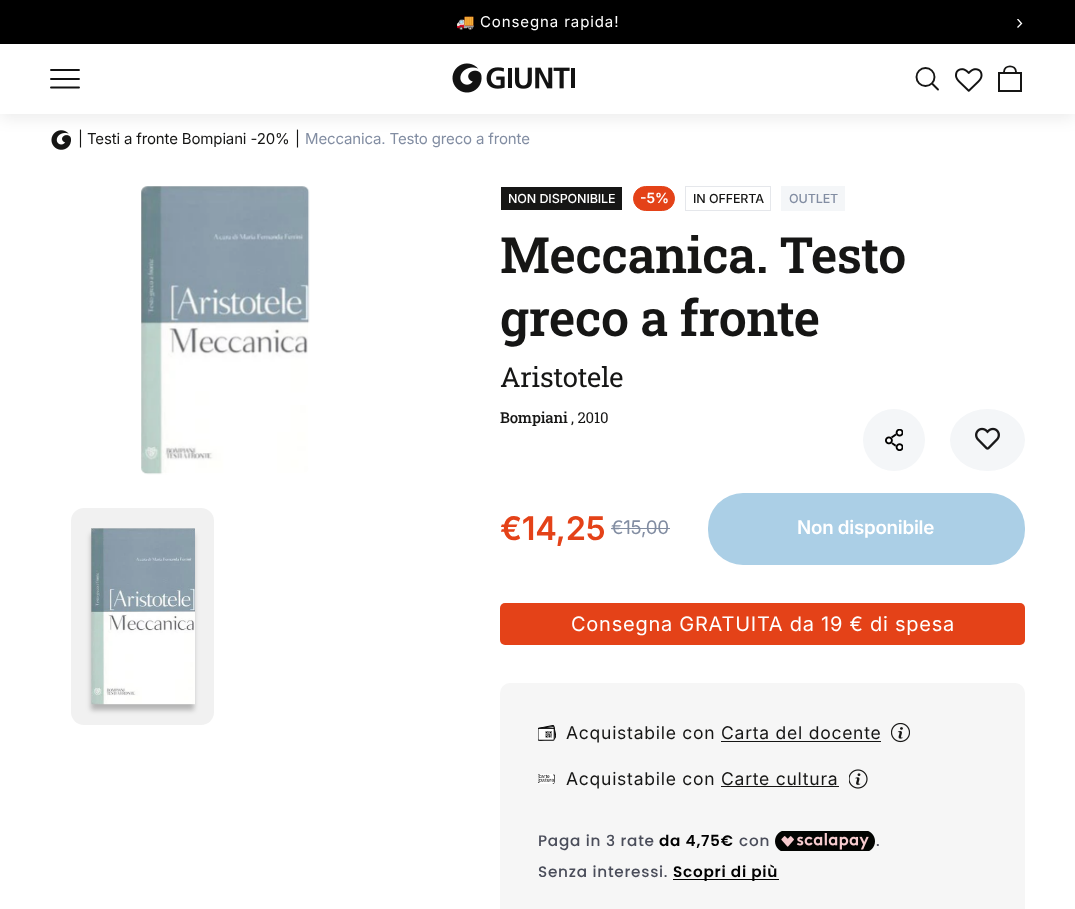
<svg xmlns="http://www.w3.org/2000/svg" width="1075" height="909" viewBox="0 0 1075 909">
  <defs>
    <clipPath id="clip1"><path d="M1015.5 28.5V19H1025V28.5Z"/></clipPath>
  </defs>
  <rect width="100%" height="100%" fill="rgb(255,255,255)"/>
  <rect x="0" y="0" width="1075" height="44" fill="rgb(0,0,0)"/>
  <text x="456" y="27" font-family="Noto Color Emoji" font-size="15" letter-spacing="0.9" fill="rgb(255,255,255)">🚚</text>
  <text x="480" y="27" font-family="Inter" font-size="15" letter-spacing="0.9" fill="rgb(255,255,255)">Consegna rapida!</text>
  <g clip-path="url(#clip1)">
    <path d="M1017.5 27.5L1021.5 23.5L1017.5 19" fill="none" stroke="rgb(255,255,255)" stroke-width="1.3"/>
  </g>
  <image x="51" y="130" width="20" height="20" href="pic3.png"/>
  <rect x="0" y="48" width="1075" height="70" fill="rgba(0,0,0,0.08)" filter="blur(8px)"/>
  <rect x="0" y="44" width="1075" height="70" fill="rgb(255,255,255)"/>
  <path d="M51 87.5H79M51 79H79M51 70H79" fill="none" stroke="rgb(18,18,18)" stroke-width="1.9" stroke-linecap="round"/>
  <image x="452" y="63" width="123" height="30" href="pic1.png"/>
  <circle cx="925.5" cy="77" r="9" fill="none" stroke="rgb(22,22,21)" stroke-width="1.9"/>
  <path d="M938 89.5L932.5 84" fill="none" stroke="rgb(22,22,21)" stroke-width="1.9" stroke-linecap="round"/>
  <image x="955" y="68" width="28" height="24" href="pic2.png"/>
  <rect x="999" y="73" width="22" height="18" fill="none" stroke="rgb(22,22,21)" stroke-width="2"/>
  <path d="M1004 72C1004 64.5 1016 64.5 1016 72" fill="none" stroke="rgb(22,22,21)" stroke-width="1.9" stroke-linecap="round" stroke-linejoin="round"/>
  <g font-family="Inter" font-size="15" letter-spacing="-0.15" fill="rgb(22,22,21)">
    <text x="78" y="144">|</text>
    <text x="87" y="144">Testi a fronte Bompiani -20%</text>
    <text x="295" y="144">|</text>
  </g>
  <text x="305" y="144" font-family="Inter" font-size="15" letter-spacing="-0.15" fill="rgb(130,141,162)">Meccanica. Testo greco a fronte</text>
  <image x="141" y="186" width="169" height="289" href="pic4.png"/>
  <rect x="71" y="508" width="143" height="217" rx="13" fill="rgb(241,241,241)"/>
  <rect x="91" y="534" width="103" height="176" fill="rgba(0,0,0,0.25)" filter="blur(2.5px)"/>
  <image x="91" y="528" width="104" height="177" href="pic5.png"/>
  <rect x="501" y="187" width="121" height="23" fill="rgb(22,22,21)"/>
  <text x="508" y="203" font-family="Inter" font-size="12.5" font-weight="500" letter-spacing="-0.1" fill="rgb(255,255,255)">NON DISPONIBILE</text>
  <rect x="633.5" y="186.5" width="41" height="24" rx="12" fill="rgb(228,66,24)" stroke="rgb(228,66,24)"/>
  <text x="640" y="203" font-family="Inter" font-size="14" font-weight="600" fill="rgb(255,255,255)">-5%</text>
  <rect x="685.5" y="186.5" width="85" height="24" fill="none" stroke="rgb(229,231,235)"/>
  <text x="693" y="203" font-family="Inter" font-size="12.5" font-weight="500" letter-spacing="-0.1" fill="rgb(22,22,21)">IN OFFERTA</text>
  <rect x="781" y="186" width="64" height="25" fill="rgb(244,246,248)"/>
  <text x="789" y="203" font-family="Inter" font-size="12.5" font-weight="500" letter-spacing="-0.1" fill="rgb(130,141,162)">OUTLET</text>
  <g font-family="Roboto Slab" font-size="50" font-weight="600" letter-spacing="-0.5" fill="rgb(22,22,21)">
    <text>
      <tspan x="500" y="273">Meccanica. Testo</tspan>
      <tspan x="500" y="336">greco a fronte</tspan>
    </text>
  </g>
  <text x="500" y="387" font-family="Roboto Slab" font-size="27.5" letter-spacing="-0.25" fill="rgb(22,22,21)">Aristotele</text>
  <text x="500" y="423" font-family="Roboto Slab" font-size="15" font-weight="500" letter-spacing="-0.15" fill="rgb(22,22,21)">Bompiani</text>
  <text x="571" y="423" font-family="Roboto Slab" font-size="15" letter-spacing="-0.15" fill="rgb(22,22,21)">, 2010</text>
  <circle cx="894" cy="440" r="31" fill="rgb(244,246,248)"/>
  <image x="885" y="429" width="18" height="22" href="pic6.png"/>
  <ellipse cx="987.5" cy="440" rx="37.5" ry="31" fill="rgb(244,246,248)"/>
  <image x="975" y="427" width="25" height="23" href="pic7.png"/>
  <text x="500" y="540" font-family="Inter" font-size="32.5" font-weight="600" letter-spacing="-0.25" fill="rgb(228,66,24)">€14,25</text>
  <text x="611" y="534" font-family="Inter" font-size="18.75" letter-spacing="-0.25" fill="rgb(130,141,162)">€15,00</text>
  <rect x="611" y="528" width="59" height="1" fill="rgb(130,141,162)"/>
  <rect x="708" y="493" width="317" height="72" rx="35" fill="rgb(171,207,230)"/>
  <text x="797" y="534" font-family="Inter" font-size="18.75" font-weight="600" letter-spacing="-0.25" fill="rgb(255,255,255)">Non disponibile</text>
  <rect x="500" y="603" width="525" height="42" rx="5" fill="rgb(228,66,24)"/>
  <text x="571" y="631" font-family="Inter" font-size="20" letter-spacing="0.75" fill="rgb(255,255,255)">Consegna GRATUITA da 19 € di spesa</text>
  <rect x="500" y="683" width="525" height="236" rx="10" fill="rgb(246,246,246)"/>
  <image x="538" y="725" width="18" height="16" href="pic8.png"/>
  <text x="566" y="739" font-family="Inter" font-size="17.5" letter-spacing="0.75" fill="rgb(22,22,21)">Acquistabile con Carta del docente</text>
  <rect x="721" y="741" width="160" height="1" fill="rgb(22,22,21)"/>
  <image x="891" y="723" width="19" height="20" href="pic9.png"/>
  <image x="538" y="774" width="17" height="10" href="pic10.png"/>
  <text x="566" y="785" font-family="Inter" font-size="17.5" letter-spacing="0.75" fill="rgb(22,22,21)">Acquistabile con Carte cultura</text>
  <rect x="721" y="786" width="118" height="1" fill="rgb(22,22,21)"/>
  <image x="849" y="769" width="19" height="20" href="pic11.png"/>
  <text x="538" y="846" font-family="Poppins" font-size="15.25" font-weight="500" letter-spacing="0.75" fill="rgb(74,77,90)">Paga in 3 rate</text>
  <text x="659" y="846" font-family="Poppins" font-size="15.25" font-weight="600" letter-spacing="0.75" fill="rgb(0,0,0)">da 4,75€</text>
  <text x="739" y="846" font-family="Poppins" font-size="15.25" font-weight="500" letter-spacing="0.75" fill="rgb(74,77,90)">con</text>
  <image x="775" y="831" width="100" height="20" href="pic12.png"/>
  <g font-family="Poppins" font-size="15.25" font-weight="500" letter-spacing="0.75" fill="rgb(74,77,90)">
    <text x="876" y="846">.</text>
    <text x="538" y="877">Senza interessi.</text>
  </g>
  <rect x="673" y="879" width="106" height="1" fill="rgb(0,0,0)"/>
  <text x="673" y="877" font-family="Poppins" font-size="15.25" font-weight="600" letter-spacing="0.75" fill="rgb(0,0,0)">Scopri di più</text>
</svg>
